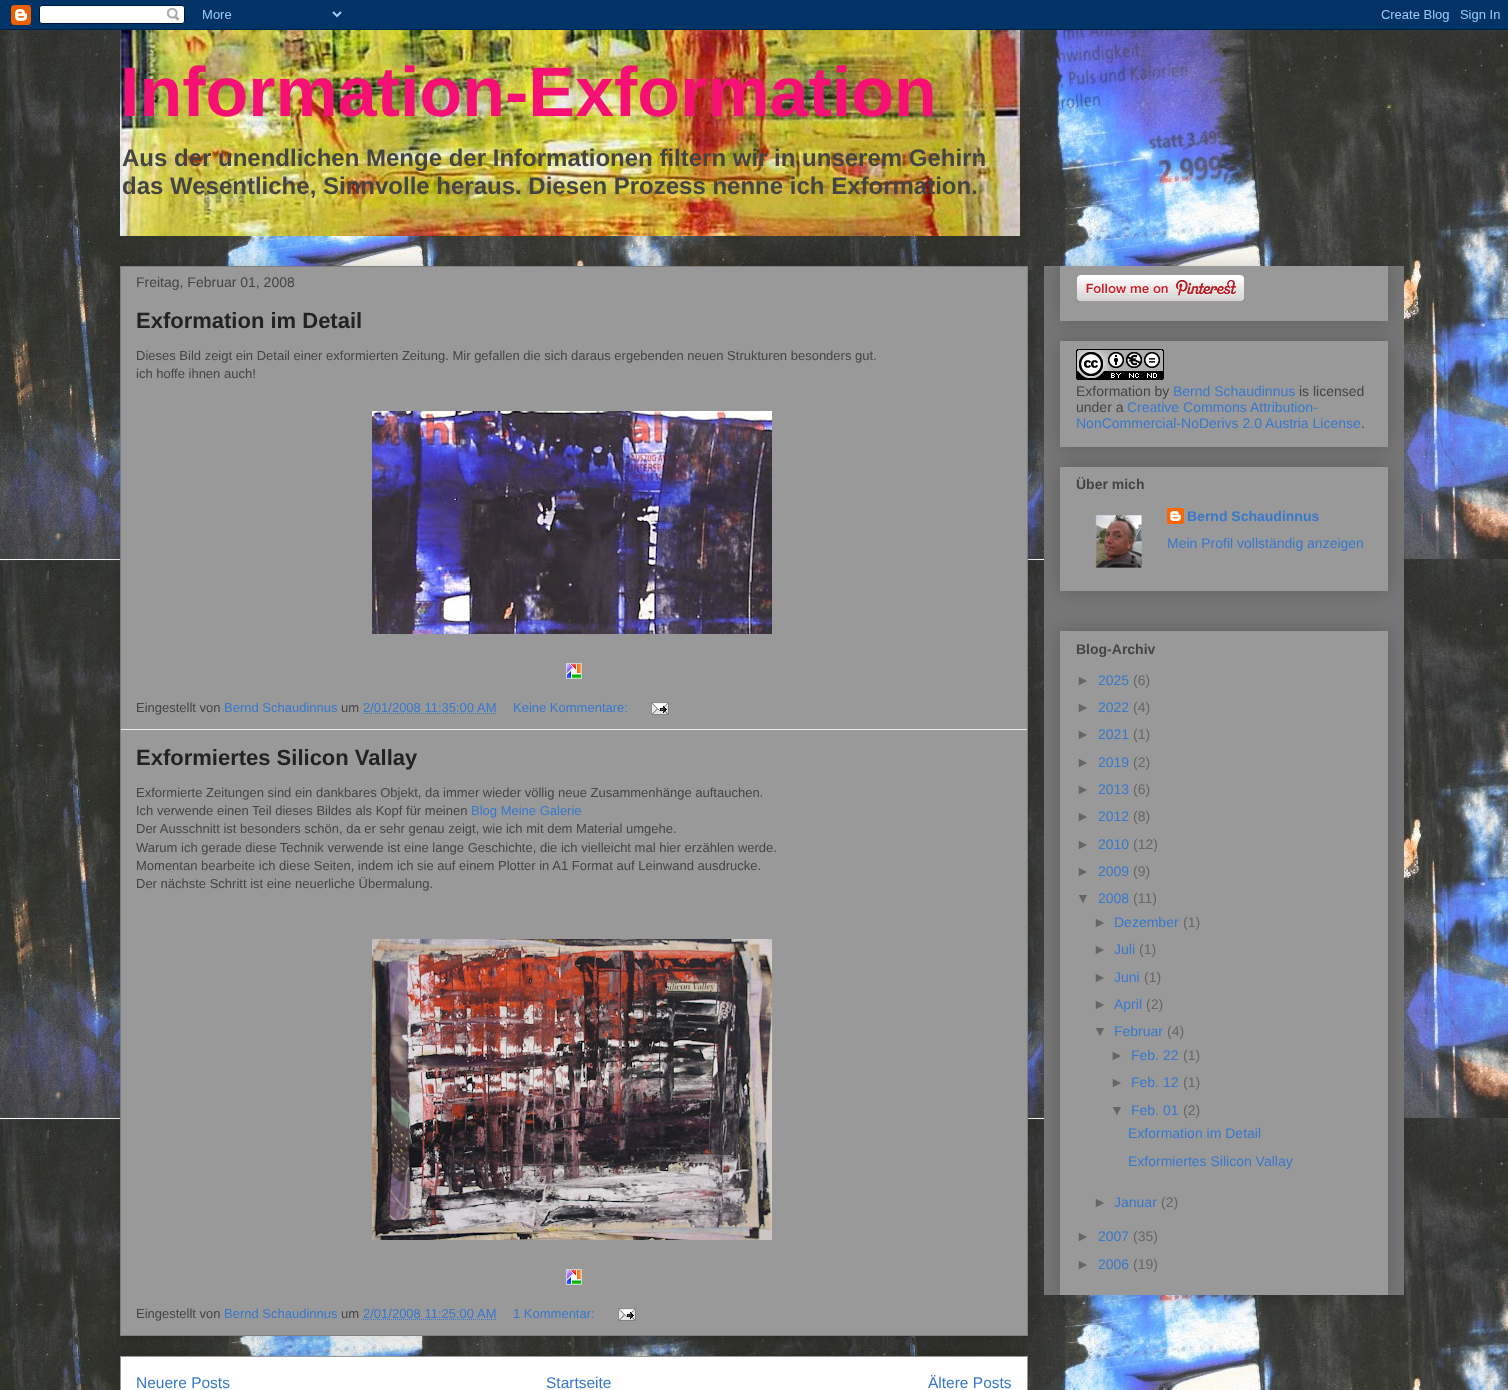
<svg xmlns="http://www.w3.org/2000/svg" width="1508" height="1390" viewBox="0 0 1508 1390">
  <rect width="100%" height="100%" fill="rgb(255,255,255)"/>
  <image x="0" y="30" width="1508" height="1360" href="pic1.png"/>
  <image x="0" y="0" width="1508" height="30" href="pic2.png"/>
  <image x="120" y="30" width="900" height="206" href="pic3.png"/>
  <text x="120" y="116" font-family="Liberation Sans" font-size="70" font-weight="bold" fill="rgb(246,16,116)">Information-Exformation</text>
  <g font-family="Liberation Sans" font-size="24" font-weight="bold" fill="rgb(68,68,68)">
    <text>
      <tspan x="122" y="166">Aus der unendlichen Menge der Informationen filtern wir in unserem Gehirn</tspan>
      <tspan x="122" y="194">das Wesentliche, Sinnvolle heraus. Diesen Prozess nenne ich Exformation.</tspan>
    </text>
  </g>
  <rect x="120" y="1356" width="908" height="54" fill="rgba(0,0,0,0.2)" filter="blur(10px)"/>
  <rect x="120.5" y="1356.5" width="907" height="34" fill="rgb(255,255,255)" stroke="rgb(153,153,153)"/>
  <rect x="120" y="266" width="908" height="1070" fill="rgba(0,0,0,0.2)" filter="blur(10px)"/>
  <rect x="120.5" y="266.5" width="907" height="1069" fill="rgb(153,153,153)" stroke="rgb(127,127,127)"/>
  <text x="136" y="287" font-family="Liberation Sans" font-size="14" fill="rgb(68,68,68)">Freitag, Februar 01, 2008</text>
  <text x="136" y="328" font-family="Liberation Sans" font-size="22" font-weight="bold" fill="rgb(34,34,34)">Exformation im Detail</text>
  <g font-family="Liberation Sans" font-size="13" fill="rgb(68,68,68)">
    <text>
      <tspan x="136" y="360">Dieses Bild zeigt ein Detail einer exformierten Zeitung. Mir gefallen die sich daraus ergebenden neuen Strukturen besonders gut.</tspan>
      <tspan x="136" y="378">ich hoffe ihnen auch!</tspan>
    </text>
  </g>
  <image x="372" y="411" width="400" height="223" href="pic4.png"/>
  <image x="566" y="663" width="16" height="16" href="pic5.png"/>
  <text x="136" y="712" font-family="Liberation Sans" font-size="13" fill="rgb(68,68,68)">Eingestellt von</text>
  <text x="224" y="712" font-family="Liberation Sans" font-size="13" fill="rgb(55,120,205)">Bernd Schaudinnus</text>
  <text x="341" y="712" font-family="Liberation Sans" font-size="13" fill="rgb(68,68,68)">um</text>
  <text x="363" y="712" font-family="Liberation Sans" font-size="13" fill="rgb(55,120,205)">2/01/2008 11:35:00 AM</text>
  <path d="M363 713.5H496.5" fill="none" stroke="rgb(55,120,205)" stroke-dasharray="1 1"/>
  <text x="513" y="712" font-family="Liberation Sans" font-size="13" fill="rgb(55,120,205)">Keine Kommentare:</text>
  <image x="651" y="702" width="18" height="13" href="pic6.png"/>
  <rect x="121" y="729" width="906" height="1" fill="rgb(238,238,238)"/>
  <text x="136" y="765" font-family="Liberation Sans" font-size="22" font-weight="bold" fill="rgb(34,34,34)">Exformiertes Silicon Vallay</text>
  <g font-family="Liberation Sans" font-size="13" fill="rgb(68,68,68)">
    <text>
      <tspan x="136" y="797">Exformierte Zeitungen sind ein dankbares Objekt, da immer wieder völlig neue Zusammenhänge auftauchen.</tspan>
      <tspan x="136" y="815">Ich verwende einen Teil dieses Bildes als Kopf für meinen</tspan>
    </text>
  </g>
  <text x="471" y="815" font-family="Liberation Sans" font-size="13" fill="rgb(55,120,205)">Blog Meine Galerie</text>
  <g font-family="Liberation Sans" font-size="13" fill="rgb(68,68,68)">
    <text>
      <tspan x="136" y="833">Der Ausschnitt ist besonders schön, da er sehr genau zeigt, wie ich mit dem Material umgehe.</tspan>
      <tspan x="136" y="852">Warum ich gerade diese Technik verwende ist eine lange Geschichte, die ich vielleicht mal hier erzählen werde.</tspan>
      <tspan x="136" y="870">Momentan bearbeite ich diese Seiten, indem ich sie auf einem Plotter in A1 Format auf Leinwand ausdrucke.</tspan>
      <tspan x="136" y="888">Der nächste Schritt ist eine neuerliche Übermalung.</tspan>
    </text>
  </g>
  <image x="372" y="939" width="400" height="301" href="pic7.png"/>
  <image x="566" y="1269" width="16" height="16" href="pic5.png"/>
  <text x="136" y="1318" font-family="Liberation Sans" font-size="13" fill="rgb(68,68,68)">Eingestellt von</text>
  <text x="224" y="1318" font-family="Liberation Sans" font-size="13" fill="rgb(55,120,205)">Bernd Schaudinnus</text>
  <text x="341" y="1318" font-family="Liberation Sans" font-size="13" fill="rgb(68,68,68)">um</text>
  <text x="363" y="1318" font-family="Liberation Sans" font-size="13" fill="rgb(55,120,205)">2/01/2008 11:25:00 AM</text>
  <path d="M363 1319.5H496.5" fill="none" stroke="rgb(55,120,205)" stroke-dasharray="1 1"/>
  <text x="513" y="1318" font-family="Liberation Sans" font-size="13" fill="rgb(55,120,205)">1 Kommentar:</text>
  <image x="618" y="1308" width="18" height="13" href="pic6.png"/>
  <g font-family="Liberation Sans" font-size="15.5" fill="rgb(55,120,205)">
    <text x="136" y="1388">Neuere Posts</text>
    <text x="546" y="1388">Startseite</text>
    <text x="928" y="1388">Ältere Posts</text>
  </g>
  <rect x="1044" y="266" width="360" height="1029" fill="rgb(119,119,119)"/>
  <rect x="1060" y="266" width="328" height="55" fill="rgba(0,0,0,0.2)" filter="blur(10px)"/>
  <rect x="1060" y="266" width="328" height="55" fill="rgb(153,153,153)"/>
  <image x="1076" y="274" width="169" height="28" href="pic8.png"/>
  <rect x="1060" y="341" width="328" height="106" fill="rgba(0,0,0,0.2)" filter="blur(10px)"/>
  <rect x="1060" y="341" width="328" height="106" fill="rgb(153,153,153)"/>
  <image x="1076" y="349" width="88" height="31" href="pic9.png"/>
  <text x="1076" y="396" font-family="Liberation Sans" font-size="14" fill="rgb(68,68,68)">Exformation by</text>
  <text x="1173" y="396" font-family="Liberation Sans" font-size="14" fill="rgb(55,120,205)">Bernd Schaudinnus</text>
  <g font-family="Liberation Sans" font-size="14" fill="rgb(68,68,68)">
    <text x="1299" y="396">is licensed</text>
    <text x="1076" y="412">under a</text>
  </g>
  <g font-family="Liberation Sans" font-size="14" fill="rgb(55,120,205)">
    <text x="1127" y="412">Creative Commons Attribution-</text>
    <text x="1076" y="428">NonCommercial-NoDerivs 2.0 Austria License</text>
  </g>
  <text x="1361" y="428" font-family="Liberation Sans" font-size="14" fill="rgb(68,68,68)">.</text>
  <rect x="1060" y="467" width="328" height="124" fill="rgba(0,0,0,0.2)" filter="blur(10px)"/>
  <rect x="1060" y="467" width="328" height="124" fill="rgb(153,153,153)"/>
  <text x="1076" y="489" font-family="Liberation Sans" font-size="14" font-weight="bold" fill="rgb(68,68,68)">Über mich</text>
  <image x="1095" y="515" width="47" height="53" href="pic10.png"/>
  <image x="1167" y="508" width="17" height="16" href="pic11.png"/>
  <text x="1187" y="521" font-family="Liberation Sans" font-size="14" font-weight="bold" fill="rgb(55,120,205)">Bernd Schaudinnus</text>
  <text x="1167" y="548" font-family="Liberation Sans" font-size="14" fill="rgb(55,120,205)">Mein Profil vollständig anzeigen</text>
  <rect x="1060" y="631" width="328" height="664" fill="rgba(0,0,0,0.2)" filter="blur(10px)"/>
  <rect x="1060" y="631" width="328" height="664" fill="rgb(153,153,153)"/>
  <text x="1076" y="654" font-family="Liberation Sans" font-size="14" font-weight="bold" fill="rgb(68,68,68)">Blog-Archiv</text>
  <text x="1076" y="685" font-family="Liberation Sans" font-size="14" fill="rgb(102,102,102)">►</text>
  <text x="1098" y="685" font-family="Liberation Sans" font-size="14" fill="rgb(55,120,205)">2025</text>
  <g font-family="Liberation Sans" font-size="14" fill="rgb(102,102,102)">
    <text x="1133" y="685">(6)</text>
    <text x="1076" y="712">►</text>
  </g>
  <text x="1098" y="712" font-family="Liberation Sans" font-size="14" fill="rgb(55,120,205)">2022</text>
  <g font-family="Liberation Sans" font-size="14" fill="rgb(102,102,102)">
    <text x="1133" y="712">(4)</text>
    <text x="1076" y="739">►</text>
  </g>
  <text x="1098" y="739" font-family="Liberation Sans" font-size="14" fill="rgb(55,120,205)">2021</text>
  <g font-family="Liberation Sans" font-size="14" fill="rgb(102,102,102)">
    <text x="1133" y="739">(1)</text>
    <text x="1076" y="767">►</text>
  </g>
  <text x="1098" y="767" font-family="Liberation Sans" font-size="14" fill="rgb(55,120,205)">2019</text>
  <g font-family="Liberation Sans" font-size="14" fill="rgb(102,102,102)">
    <text x="1133" y="767">(2)</text>
    <text x="1076" y="794">►</text>
  </g>
  <text x="1098" y="794" font-family="Liberation Sans" font-size="14" fill="rgb(55,120,205)">2013</text>
  <g font-family="Liberation Sans" font-size="14" fill="rgb(102,102,102)">
    <text x="1133" y="794">(6)</text>
    <text x="1076" y="821">►</text>
  </g>
  <text x="1098" y="821" font-family="Liberation Sans" font-size="14" fill="rgb(55,120,205)">2012</text>
  <g font-family="Liberation Sans" font-size="14" fill="rgb(102,102,102)">
    <text x="1133" y="821">(8)</text>
    <text x="1076" y="849">►</text>
  </g>
  <text x="1098" y="849" font-family="Liberation Sans" font-size="14" fill="rgb(55,120,205)">2010</text>
  <g font-family="Liberation Sans" font-size="14" fill="rgb(102,102,102)">
    <text x="1133" y="849">(12)</text>
    <text x="1076" y="876">►</text>
  </g>
  <text x="1098" y="876" font-family="Liberation Sans" font-size="14" fill="rgb(55,120,205)">2009</text>
  <g font-family="Liberation Sans" font-size="14" fill="rgb(102,102,102)">
    <text x="1133" y="876">(9)</text>
    <text x="1076" y="903">▼</text>
  </g>
  <text x="1098" y="903" font-family="Liberation Sans" font-size="14" fill="rgb(55,120,205)">2008</text>
  <g font-family="Liberation Sans" font-size="14" fill="rgb(102,102,102)">
    <text x="1133" y="903">(11)</text>
    <text x="1093" y="927">►</text>
  </g>
  <text x="1114" y="927" font-family="Liberation Sans" font-size="14" fill="rgb(55,120,205)">Dezember</text>
  <g font-family="Liberation Sans" font-size="14" fill="rgb(102,102,102)">
    <text x="1183" y="927">(1)</text>
    <text x="1093" y="954">►</text>
  </g>
  <text x="1114" y="954" font-family="Liberation Sans" font-size="14" fill="rgb(55,120,205)">Juli</text>
  <g font-family="Liberation Sans" font-size="14" fill="rgb(102,102,102)">
    <text x="1139" y="954">(1)</text>
    <text x="1093" y="982">►</text>
  </g>
  <text x="1114" y="982" font-family="Liberation Sans" font-size="14" fill="rgb(55,120,205)">Juni</text>
  <g font-family="Liberation Sans" font-size="14" fill="rgb(102,102,102)">
    <text x="1144" y="982">(1)</text>
    <text x="1093" y="1009">►</text>
  </g>
  <text x="1114" y="1009" font-family="Liberation Sans" font-size="14" fill="rgb(55,120,205)">April</text>
  <g font-family="Liberation Sans" font-size="14" fill="rgb(102,102,102)">
    <text x="1146" y="1009">(2)</text>
    <text x="1093" y="1036">▼</text>
  </g>
  <text x="1114" y="1036" font-family="Liberation Sans" font-size="14" fill="rgb(55,120,205)">Februar</text>
  <g font-family="Liberation Sans" font-size="14" fill="rgb(102,102,102)">
    <text x="1167" y="1036">(4)</text>
    <text x="1110" y="1060">►</text>
  </g>
  <text x="1131" y="1060" font-family="Liberation Sans" font-size="14" fill="rgb(55,120,205)">Feb. 22</text>
  <g font-family="Liberation Sans" font-size="14" fill="rgb(102,102,102)">
    <text x="1183" y="1060">(1)</text>
    <text x="1110" y="1087">►</text>
  </g>
  <text x="1131" y="1087" font-family="Liberation Sans" font-size="14" fill="rgb(55,120,205)">Feb. 12</text>
  <g font-family="Liberation Sans" font-size="14" fill="rgb(102,102,102)">
    <text x="1183" y="1087">(1)</text>
    <text x="1110" y="1115">▼</text>
  </g>
  <text x="1131" y="1115" font-family="Liberation Sans" font-size="14" fill="rgb(55,120,205)">Feb. 01</text>
  <text x="1183" y="1115" font-family="Liberation Sans" font-size="14" fill="rgb(102,102,102)">(2)</text>
  <g font-family="Liberation Sans" font-size="14" fill="rgb(55,120,205)">
    <text x="1128" y="1138">Exformation im Detail</text>
    <text x="1128" y="1166">Exformiertes Silicon Vallay</text>
  </g>
  <text x="1093" y="1207" font-family="Liberation Sans" font-size="14" fill="rgb(102,102,102)">►</text>
  <text x="1114" y="1207" font-family="Liberation Sans" font-size="14" fill="rgb(55,120,205)">Januar</text>
  <g font-family="Liberation Sans" font-size="14" fill="rgb(102,102,102)">
    <text x="1161" y="1207">(2)</text>
    <text x="1076" y="1241">►</text>
  </g>
  <text x="1098" y="1241" font-family="Liberation Sans" font-size="14" fill="rgb(55,120,205)">2007</text>
  <g font-family="Liberation Sans" font-size="14" fill="rgb(102,102,102)">
    <text x="1133" y="1241">(35)</text>
    <text x="1076" y="1269">►</text>
  </g>
  <text x="1098" y="1269" font-family="Liberation Sans" font-size="14" fill="rgb(55,120,205)">2006</text>
  <text x="1133" y="1269" font-family="Liberation Sans" font-size="14" fill="rgb(102,102,102)">(19)</text>
</svg>
